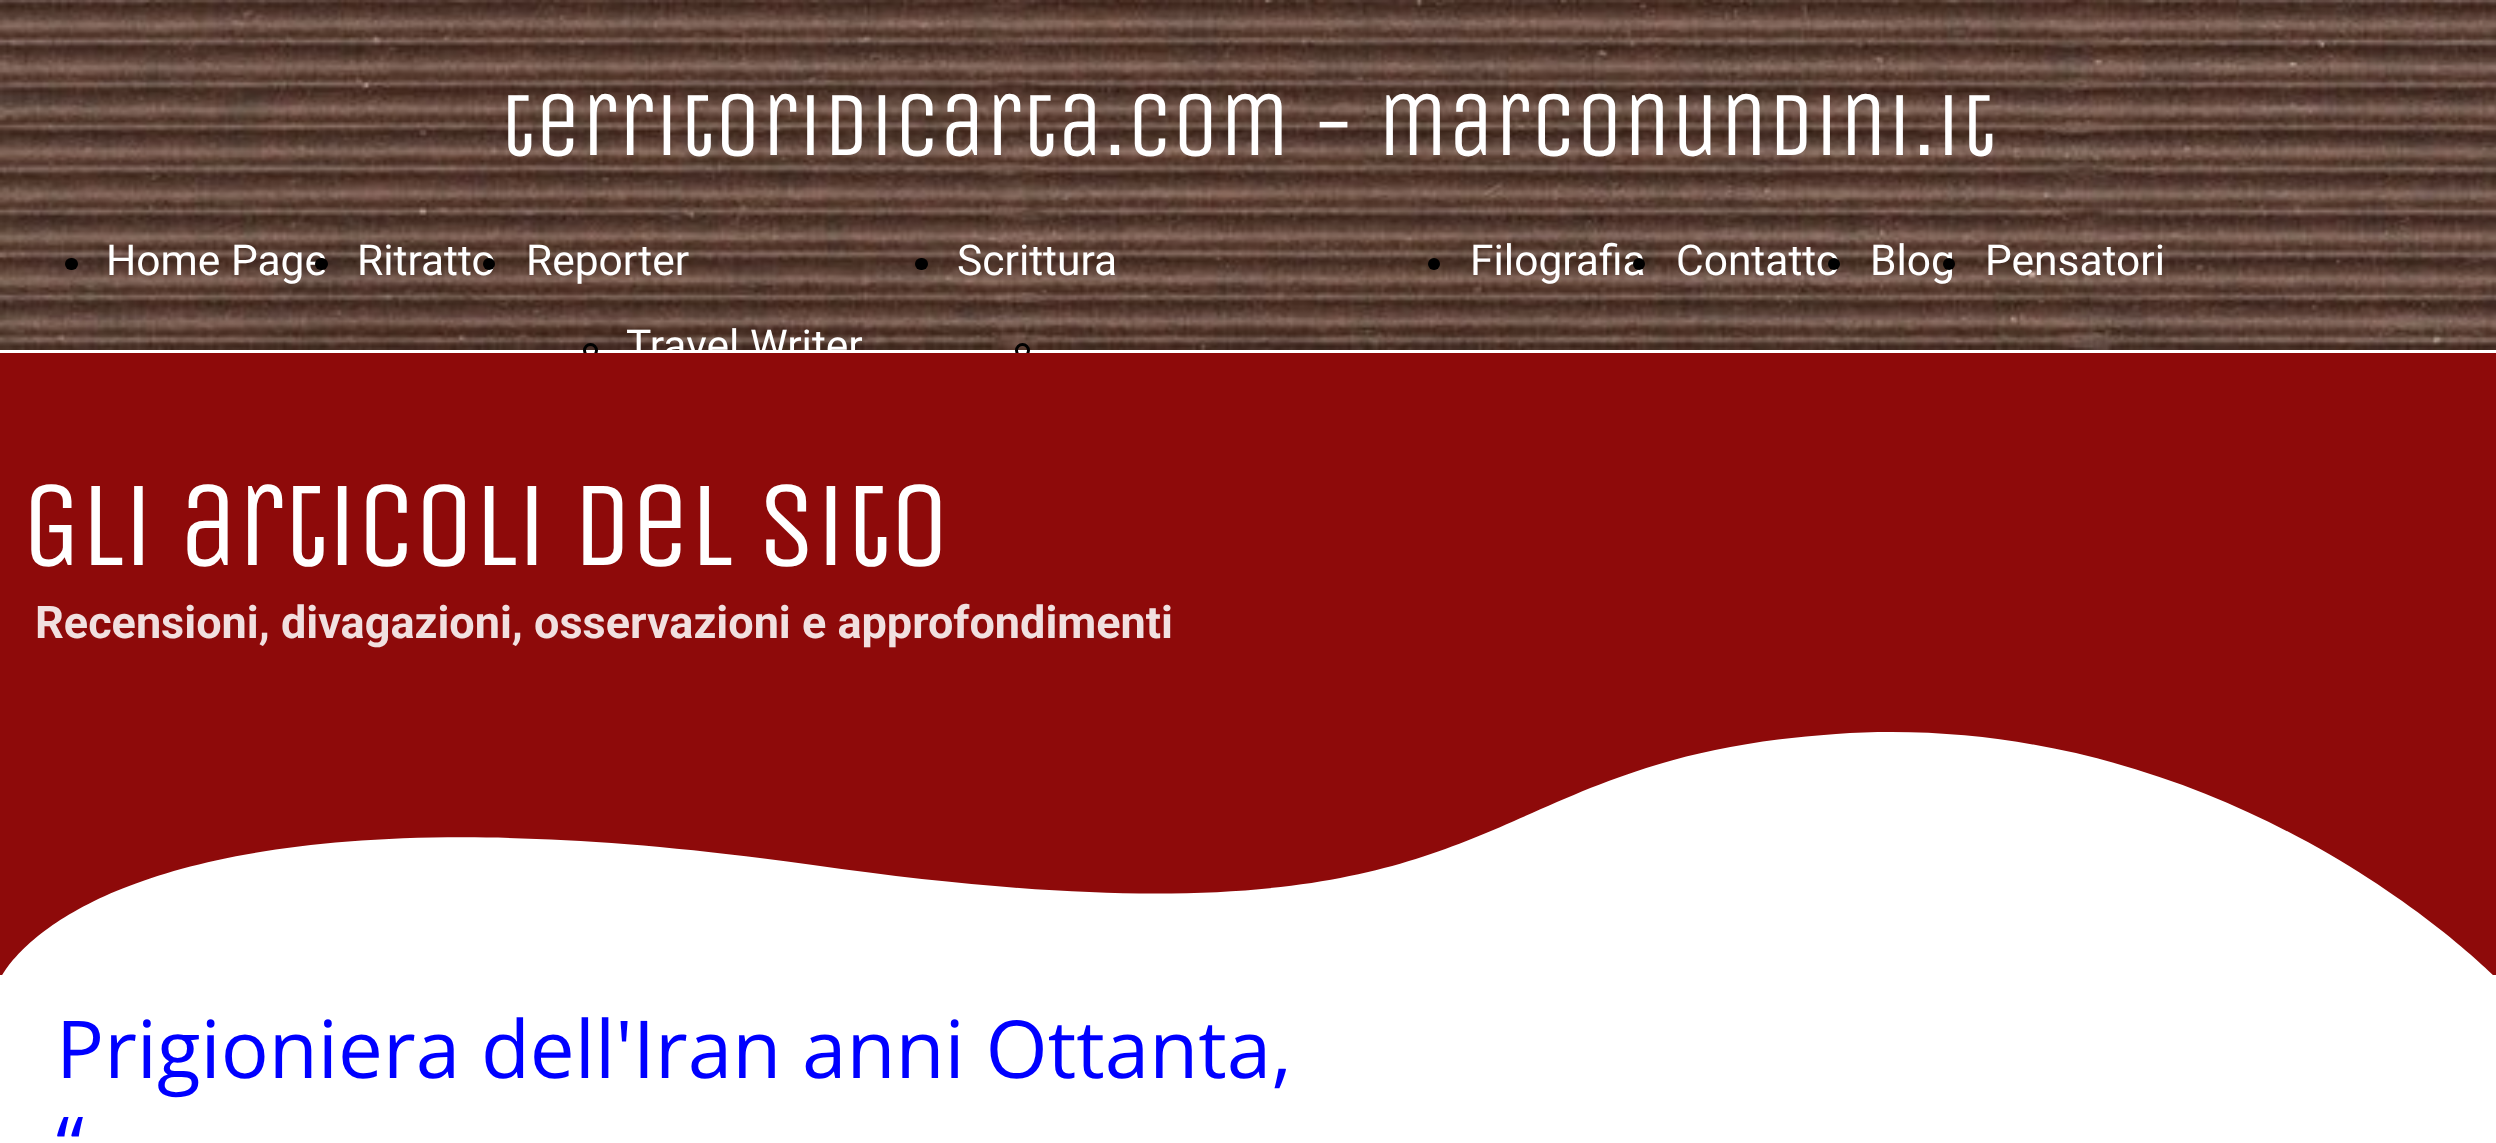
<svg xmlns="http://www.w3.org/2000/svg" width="2496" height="1143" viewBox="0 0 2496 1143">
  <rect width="100%" height="100%" fill="rgb(255,255,255)"/>
  <image x="0" y="0" width="2496" height="350" href="pic1.png"/>
  <text x="500" y="155" font-family="Unica One" font-size="92" fill="rgb(255,255,255)">territoridicarta.com - marconundini.it</text>
  <rect x="65" y="258" width="13" height="12" rx="6" fill="rgb(0,0,0)"/>
  <text x="106" y="275" font-family="Roboto" font-size="42.5" fill="rgb(255,255,255)">Home Page</text>
  <rect x="315" y="258" width="13" height="12" rx="6" fill="rgb(0,0,0)"/>
  <text x="357" y="275" font-family="Roboto" font-size="42.5" fill="rgb(255,255,255)">Ritratto</text>
  <circle cx="489" cy="264" r="6" fill="rgb(0,0,0)"/>
  <text x="526" y="275" font-family="Roboto" font-size="42.5" fill="rgb(255,255,255)">Reporter</text>
  <circle cx="590.5" cy="350.5" r="6" fill="none" stroke="rgb(0,0,0)" stroke-width="3"/>
  <text x="626" y="360" font-family="Roboto" font-size="42.5" fill="rgb(255,255,255)">Travel Writer</text>
  <rect x="915" y="258" width="13" height="12" rx="6" fill="rgb(0,0,0)"/>
  <text x="957" y="275" font-family="Roboto" font-size="42.5" fill="rgb(255,255,255)">Scrittura</text>
  <circle cx="1022.5" cy="350.5" r="6" fill="none" stroke="rgb(0,0,0)" stroke-width="3"/>
  <circle cx="1434" cy="264" r="6" fill="rgb(0,0,0)"/>
  <text x="1470" y="275" font-family="Roboto" font-size="42.5" fill="rgb(255,255,255)">Filografia</text>
  <circle cx="1639" cy="264" r="6" fill="rgb(0,0,0)"/>
  <text x="1676" y="275" font-family="Roboto" font-size="42.5" fill="rgb(255,255,255)">Contatto</text>
  <circle cx="1834" cy="264" r="6" fill="rgb(0,0,0)"/>
  <text x="1870" y="275" font-family="Roboto" font-size="42.5" fill="rgb(255,255,255)">Blog</text>
  <circle cx="1949" cy="264" r="6" fill="rgb(0,0,0)"/>
  <text x="1985" y="275" font-family="Roboto" font-size="42.5" fill="rgb(255,255,255)">Pensatori</text>
  <rect x="0" y="353" width="2496" height="622" fill="rgb(142,10,10)"/>
  <text x="21" y="565" font-family="Unica One" font-size="121.5" letter-spacing="-2.5" fill="rgb(255,255,255)">Gli articoli del sito</text>
  <text x="35" y="638" font-family="Roboto" font-size="45" font-weight="bold" fill="rgb(241,224,224)">Recensioni, divagazioni, osservazioni e approfondimenti</text>
  <path d="M0 980H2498C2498 980 2234 707 1836 734C1439 761 1537 968 813 865C88 762 0 980 0 980Z" fill="rgb(255,255,255)"/>
  <g font-family="Open Sans" font-size="80" fill="rgb(0,0,255)">
    <text>
      <tspan x="56" y="1078">Prigioniera dell'Iran anni Ottanta,</tspan>
      <tspan x="56" y="1174">“</tspan>
    </text>
  </g>
</svg>
